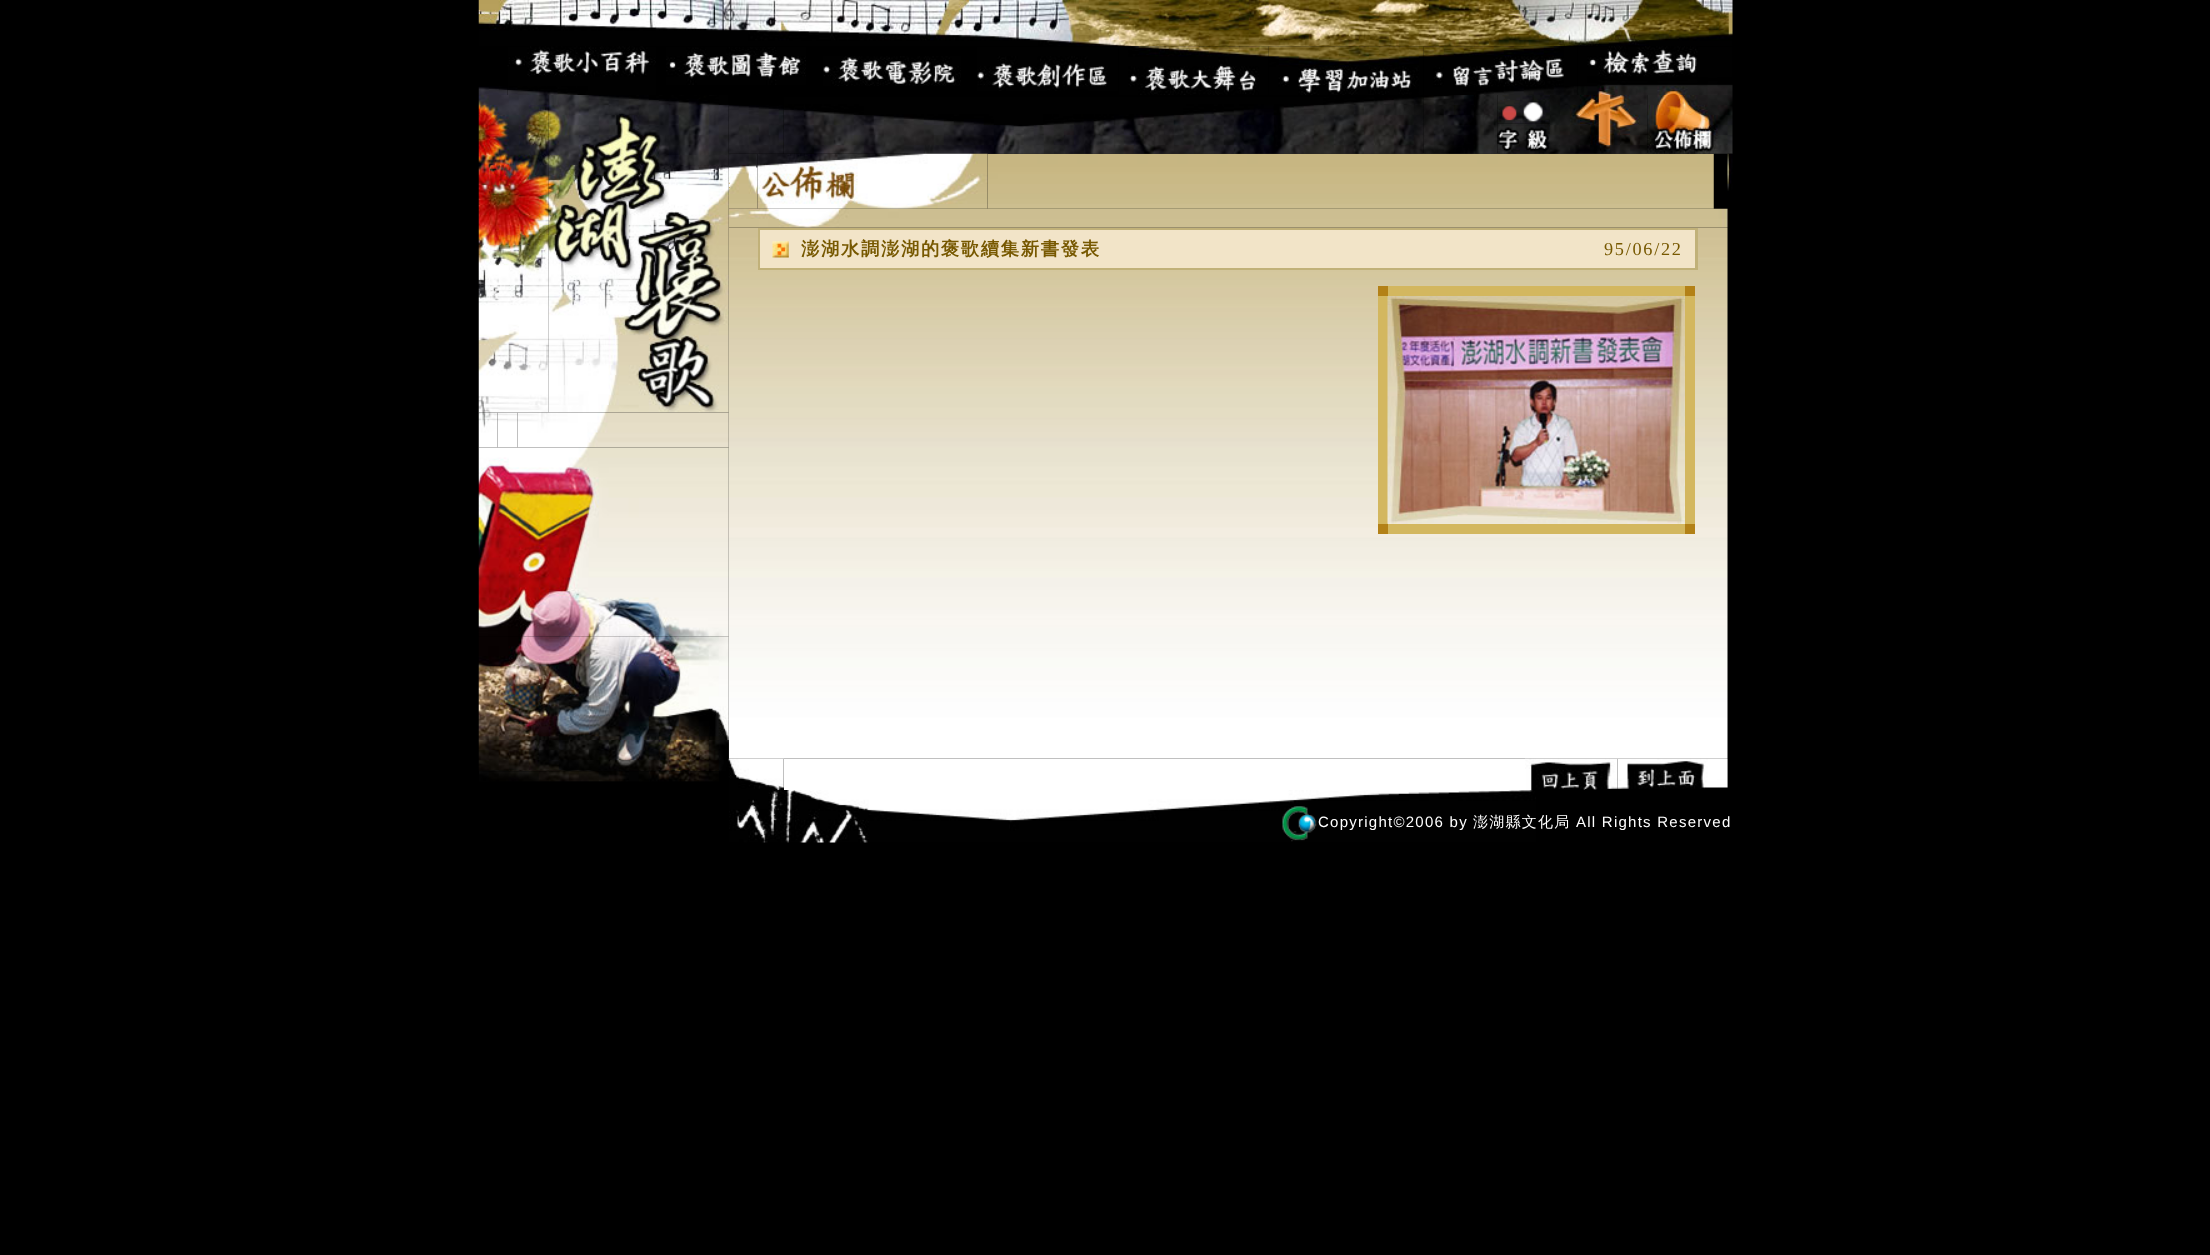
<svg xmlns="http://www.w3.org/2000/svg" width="2210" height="1255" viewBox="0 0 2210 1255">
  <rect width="100%" height="100%" fill="rgb(0,0,0)"/>
  <image x="478" y="0" width="1255" height="47" href="pic1.png"/>
  <image x="478" y="86" width="30" height="9" href="pic10.png"/>
  <image x="507" y="46" width="149" height="49" href="pic2.png"/>
  <image x="666" y="47" width="140" height="38" href="pic3.png"/>
  <image x="823" y="56" width="138" height="30" href="pic4.png"/>
  <image x="977" y="46" width="142" height="45" href="pic5.png"/>
  <image x="1119" y="46" width="150" height="49" href="pic6.png"/>
  <image x="1268" y="46" width="156" height="49" href="pic7.png"/>
  <image x="1423" y="46" width="155" height="49" href="pic8.png"/>
  <image x="1577" y="46" width="156" height="49" href="pic9.png"/>
  <image x="478" y="95" width="71" height="318" href="pic11.png"/>
  <image x="728" y="153" width="30" height="56" href="pic28.png"/>
  <image x="728" y="227" width="1000" height="532" href="pic33.png"/>
  <image x="548" y="95" width="181" height="318" href="pic12.png"/>
  <image x="478" y="412" width="20" height="36" href="pic13.png"/>
  <image x="497" y="412" width="21" height="36" href="pic14.png"/>
  <image x="517" y="412" width="212" height="36" href="pic15.png"/>
  <image x="478" y="447" width="251" height="190" href="pic16.png"/>
  <image x="478" y="636" width="251" height="104" href="pic17.png"/>
  <image x="478" y="740" width="251" height="32" href="pic18.png"/>
  <image x="479" y="771" width="240" height="11" href="pic19.png"/>
  <image x="729" y="105" width="55" height="49" href="pic20.png"/>
  <image x="987" y="153" width="727" height="56" href="pic30.png"/>
  <image x="784" y="97" width="640" height="57" href="pic21.png"/>
  <image x="1423" y="95" width="75" height="59" href="pic22.png"/>
  <image x="1497" y="95" width="23" height="29" href="pic23.png"/>
  <image x="1520" y="95" width="30" height="29" href="pic24.png"/>
  <image x="1497" y="123" width="53" height="31" href="pic25.png"/>
  <image x="1550" y="95" width="98" height="59" href="pic26.png"/>
  <image x="1647" y="95" width="86" height="59" href="pic27.png"/>
  <text x="728" y="188" font-family="Liberation Sans" font-size="10" fill="rgb(193,169,105)">:</text>
  <image x="757" y="153" width="231" height="56" href="pic29.png"/>
  <image x="1727" y="153" width="6" height="38" href="pic31.png"/>
  <image x="728" y="208" width="1001" height="20" href="pic32.png"/>
  <rect x="758" y="228" width="940" height="42" fill="rgb(193,177,121)"/>
  <rect x="760" y="230" width="935" height="38" fill="rgb(242,228,200)"/>
  <image x="772" y="241" width="17" height="17" href="pic34.png"/>
  <text x="801" y="255" font-family="WenQuanYi Zen Hei" font-size="18.3" font-weight="bold" letter-spacing="1.7" fill="rgb(119,88,0)">澎湖水調澎湖的褒歌續集新書發表</text>
  <text x="1604" y="255" font-family="Liberation Serif" font-size="18.3" letter-spacing="1.7" fill="rgb(119,88,0)">95/06/22</text>
  <rect x="1378" y="286" width="10" height="10" fill="rgb(179,129,23)"/>
  <rect x="1388" y="286" width="297" height="10" fill="rgb(211,183,95)"/>
  <rect x="1685" y="286" width="10" height="10" fill="rgb(179,129,23)"/>
  <rect x="1378" y="296" width="10" height="228" fill="rgb(211,183,95)"/>
  <image x="1387" y="296" width="298" height="228" href="pic35.png"/>
  <rect x="1685" y="296" width="10" height="228" fill="rgb(211,183,95)"/>
  <rect x="1378" y="524" width="10" height="10" fill="rgb(179,129,23)"/>
  <rect x="1388" y="524" width="297" height="10" fill="rgb(211,183,95)"/>
  <rect x="1685" y="524" width="10" height="10" fill="rgb(179,129,23)"/>
  <image x="728" y="758" width="56" height="32" href="pic36.png"/>
  <rect x="784" y="759" width="741" height="31" fill="rgb(255,255,255)"/>
  <image x="1525" y="758" width="93" height="32" href="pic37.png"/>
  <image x="1617" y="758" width="111" height="31" href="pic38.png"/>
  <image x="729" y="790" width="807" height="53" href="pic39.png"/>
  <image x="1282" y="806" width="35" height="36" href="pic40.png"/>
  <text x="1318" y="827" font-family="Liberation Sans" font-size="15" letter-spacing="1.25" fill="rgb(255,255,255)">Copyright©2006 by</text>
  <text x="1473" y="827" font-family="WenQuanYi Zen Hei" font-size="15" font-weight="500" letter-spacing="1.25" fill="rgb(255,255,255)">澎湖縣文化局</text>
  <text x="1576" y="827" font-family="Liberation Sans" font-size="15" letter-spacing="1.25" fill="rgb(255,255,255)">All Rights Reserved</text>
</svg>
